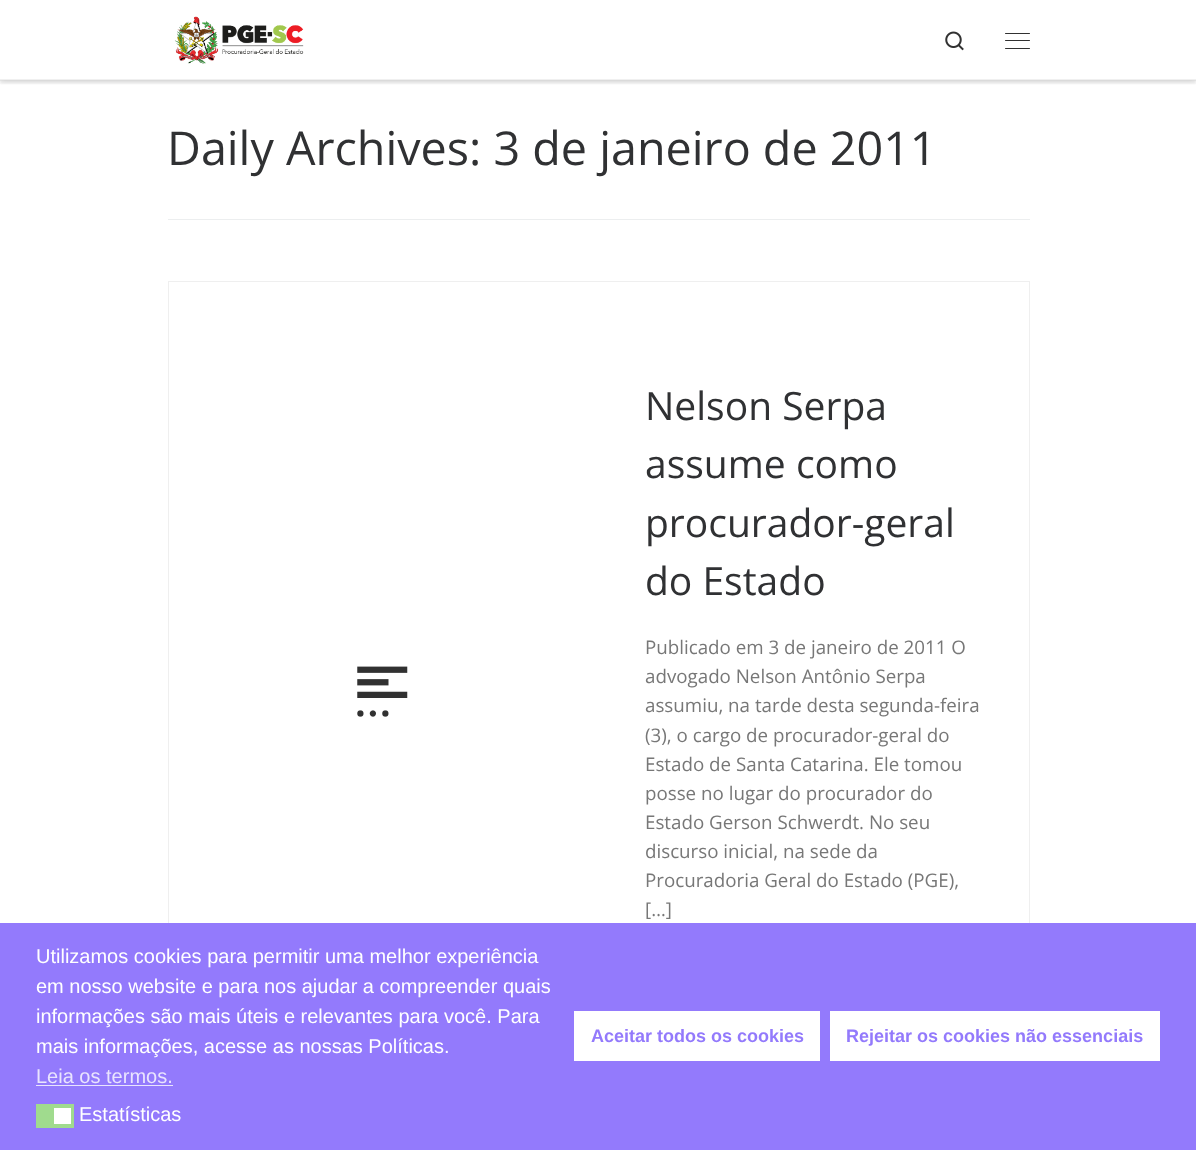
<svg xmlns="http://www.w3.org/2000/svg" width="1196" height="1150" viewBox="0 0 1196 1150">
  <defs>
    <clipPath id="clip1"><rect x="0" y="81" width="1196" height="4"/></clipPath>
    <clipPath id="clip2"><rect x="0" y="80" width="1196" height="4"/></clipPath>
  </defs>
  <rect width="100%" height="100%" fill="rgb(255,255,255)"/>
  <g clip-path="url(#clip1)">
    <rect x="0" y="3" width="1196" height="81" fill="rgba(102,102,102,0.08)" filter="blur(1px)"/>
  </g>
  <rect x="0" y="80" width="1196" height="1" fill="rgb(239,239,239)"/>
  <g clip-path="url(#clip2)">
    <rect x="0" y="0" width="1196" height="80" fill="rgba(0,0,0,0.2)" filter="blur(3px)"/>
  </g>
  <image x="174" y="16" width="130" height="48" href="pic1.png"/>
  <image x="945" y="31" width="19" height="20" href="pic2.png"/>
  <rect x="1005" y="33" width="25" height="1" rx="0.5" fill="rgb(49,49,49)"/>
  <rect x="1005" y="40" width="25" height="1" rx="0.5" fill="rgb(49,49,49)"/>
  <rect x="1005" y="48" width="25" height="1" rx="0.5" fill="rgb(49,49,49)"/>
  <rect x="0" y="79" width="1196" height="1" fill="rgb(240,240,240)"/>
  <text x="167" y="165" font-family="Open Sans" font-size="46.7" fill="rgb(48,49,51)">Daily Archives: 3 de janeiro de 2011</text>
  <rect x="168" y="219" width="862" height="1" fill="rgb(236,238,239)"/>
  <image x="357" y="666" width="51" height="51" href="pic3.png"/>
  <rect x="168.5" y="281.5" width="861" height="809" fill="none" stroke="rgb(239,239,239)"/>
  <g font-family="Open Sans" font-size="39" fill="rgb(48,49,51)">
    <text>
      <tspan x="645" y="420">Nelson Serpa</tspan>
      <tspan x="645" y="478">assume como</tspan>
      <tspan x="645" y="537">procurador-geral</tspan>
      <tspan x="645" y="595">do Estado</tspan>
    </text>
  </g>
  <g font-family="Open Sans" font-size="18.75" fill="rgb(119,119,119)">
    <text>
      <tspan x="645" y="654">Publicado em 3 de janeiro de 2011 O</tspan>
      <tspan x="645" y="683">advogado Nelson Antônio Serpa</tspan>
      <tspan x="645" y="712">assumiu, na tarde desta segunda-feira</tspan>
      <tspan x="645" y="742">(3), o cargo de procurador-geral do</tspan>
      <tspan x="645" y="771">Estado de Santa Catarina. Ele tomou</tspan>
      <tspan x="645" y="800">posse no lugar do procurador do</tspan>
      <tspan x="645" y="829">Estado Gerson Schwerdt. No seu</tspan>
      <tspan x="645" y="858">discurso inicial, na sede da</tspan>
      <tspan x="645" y="887">Procuradoria Geral do Estado (PGE),</tspan>
      <tspan x="645" y="916">[…]</tspan>
    </text>
  </g>
  <rect x="0" y="923" width="1196" height="227" fill="rgb(147,122,252)"/>
  <g font-family="Liberation Sans" font-size="20" fill="rgb(255,255,255)">
    <text>
      <tspan x="36" y="963">Utilizamos cookies para permitir uma melhor experiência</tspan>
      <tspan x="36" y="993">em nosso website e para nos ajudar a compreender quais</tspan>
      <tspan x="36" y="1023">informações são mais úteis e relevantes para você. Para</tspan>
      <tspan x="36" y="1053">mais informações, acesse as nossas Políticas.</tspan>
    </text>
  </g>
  <text x="36" y="1083" font-family="Liberation Sans" font-size="20" fill="rgb(233,228,254)">Leia os termos.</text>
  <rect x="36" y="1085" width="137" height="1" fill="rgb(233,228,254)"/>
  <rect x="36" y="1104" width="38" height="24" fill="rgb(160,219,142)"/>
  <rect x="54" y="1108" width="17" height="16" fill="rgb(255,255,255)"/>
  <text x="79" y="1121" font-family="Liberation Sans" font-size="20" fill="rgb(255,255,255)">Estatísticas</text>
  <rect x="574" y="1011" width="246" height="50" fill="rgb(255,255,255)"/>
  <text x="591" y="1042" font-family="Liberation Sans" font-size="18" font-weight="bold" fill="rgb(147,122,252)">Aceitar todos os cookies</text>
  <rect x="830" y="1011" width="330" height="50" fill="rgb(255,255,255)"/>
  <text x="846" y="1042" font-family="Liberation Sans" font-size="18" font-weight="bold" fill="rgb(147,122,252)">Rejeitar os cookies não essenciais</text>
</svg>
